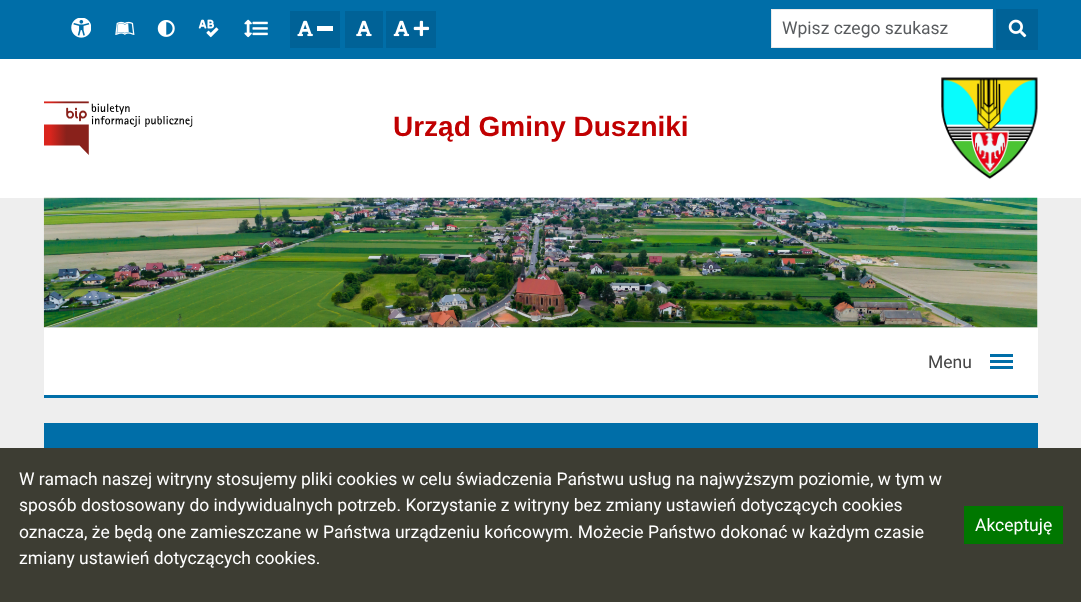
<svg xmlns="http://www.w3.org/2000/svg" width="1081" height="602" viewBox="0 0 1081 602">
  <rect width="100%" height="100%" fill="rgb(238,238,238)"/>
  <rect x="0" y="0" width="1081" height="59" fill="rgb(0,110,168)"/>
  <image x="71" y="18" width="20" height="20" href="pic1.png"/>
  <image x="115" y="21" width="20" height="14" href="pic2.png"/>
  <image x="157" y="20" width="18" height="17" href="pic3.png"/>
  <image x="198" y="19" width="21" height="19" href="pic4.png"/>
  <image x="244" y="19" width="24" height="19" href="pic5.png"/>
  <rect x="290" y="11" width="50" height="37" fill="rgb(0,98,151)"/>
  <image x="297" y="20" width="16" height="17" href="pic6.png"/>
  <rect x="317" y="26" width="16" height="5" fill="rgb(255,255,255)"/>
  <rect x="345" y="11" width="38" height="37" fill="rgb(0,98,151)"/>
  <image x="356" y="20" width="16" height="17" href="pic7.png"/>
  <rect x="386" y="11" width="50" height="37" fill="rgb(0,98,151)"/>
  <image x="393" y="20" width="17" height="17" href="pic8.png"/>
  <image x="413" y="20" width="17" height="17" href="pic9.png"/>
  <rect x="771.5" y="9.5" width="221" height="38" fill="rgb(255,255,255)" stroke="rgb(234,234,234)"/>
  <text x="782" y="34" font-family="Roboto" font-size="17.5" fill="rgb(89,92,95)">Wpisz czego szukasz</text>
  <rect x="996" y="9" width="42" height="41" fill="rgb(0,98,151)"/>
  <image x="1008" y="19" width="19" height="19" href="pic10.png"/>
  <rect x="0" y="59" width="1081" height="139" fill="rgb(255,255,255)"/>
  <image x="44" y="101" width="149" height="54" href="pic11.png"/>
  <text x="393" y="136" font-family="Liberation Sans" font-size="28" font-weight="bold" fill="rgb(192,0,1)">Urząd Gminy Duszniki</text>
  <image x="941" y="77" width="97" height="102" href="pic12.png"/>
  <image x="43" y="197" width="995" height="131" href="pic13.png"/>
  <rect x="0" y="448" width="1081" height="154" fill="rgb(61,61,51)"/>
  <g font-family="Roboto" font-size="17.5" fill="rgb(255,255,255)">
    <text>
      <tspan x="19" y="485">W ramach naszej witryny stosujemy pliki cookies w celu świadczenia Państwu usług na najwyższym poziomie, w tym w</tspan>
      <tspan x="19" y="511">sposób dostosowany do indywidualnych potrzeb. Korzystanie z witryny bez zmiany ustawień dotyczących cookies</tspan>
      <tspan x="19" y="538">oznacza, że będą one zamieszczane w Państwa urządzeniu końcowym. Możecie Państwo dokonać w każdym czasie</tspan>
      <tspan x="19" y="564">zmiany ustawień dotyczących cookies.</tspan>
    </text>
  </g>
  <rect x="964" y="506" width="99" height="38" fill="rgb(0,119,0)"/>
  <text x="975" y="531" font-family="Roboto" font-size="17.5" fill="rgb(255,255,255)">Akceptuję</text>
  <rect x="44" y="328" width="994" height="67" fill="rgb(255,255,255)"/>
  <rect x="44" y="395" width="994" height="3" fill="rgb(0,110,168)"/>
  <text x="928" y="368" font-family="Roboto" font-size="17.5" fill="rgb(68,68,68)">Menu</text>
  <rect x="990" y="360" width="23" height="3" fill="rgb(0,110,168)"/>
  <rect x="990" y="354" width="23" height="3" fill="rgb(0,110,168)"/>
  <rect x="990" y="366" width="23" height="3" fill="rgb(0,110,168)"/>
  <rect x="44" y="423" width="994" height="25" fill="rgb(0,110,168)"/>
</svg>
